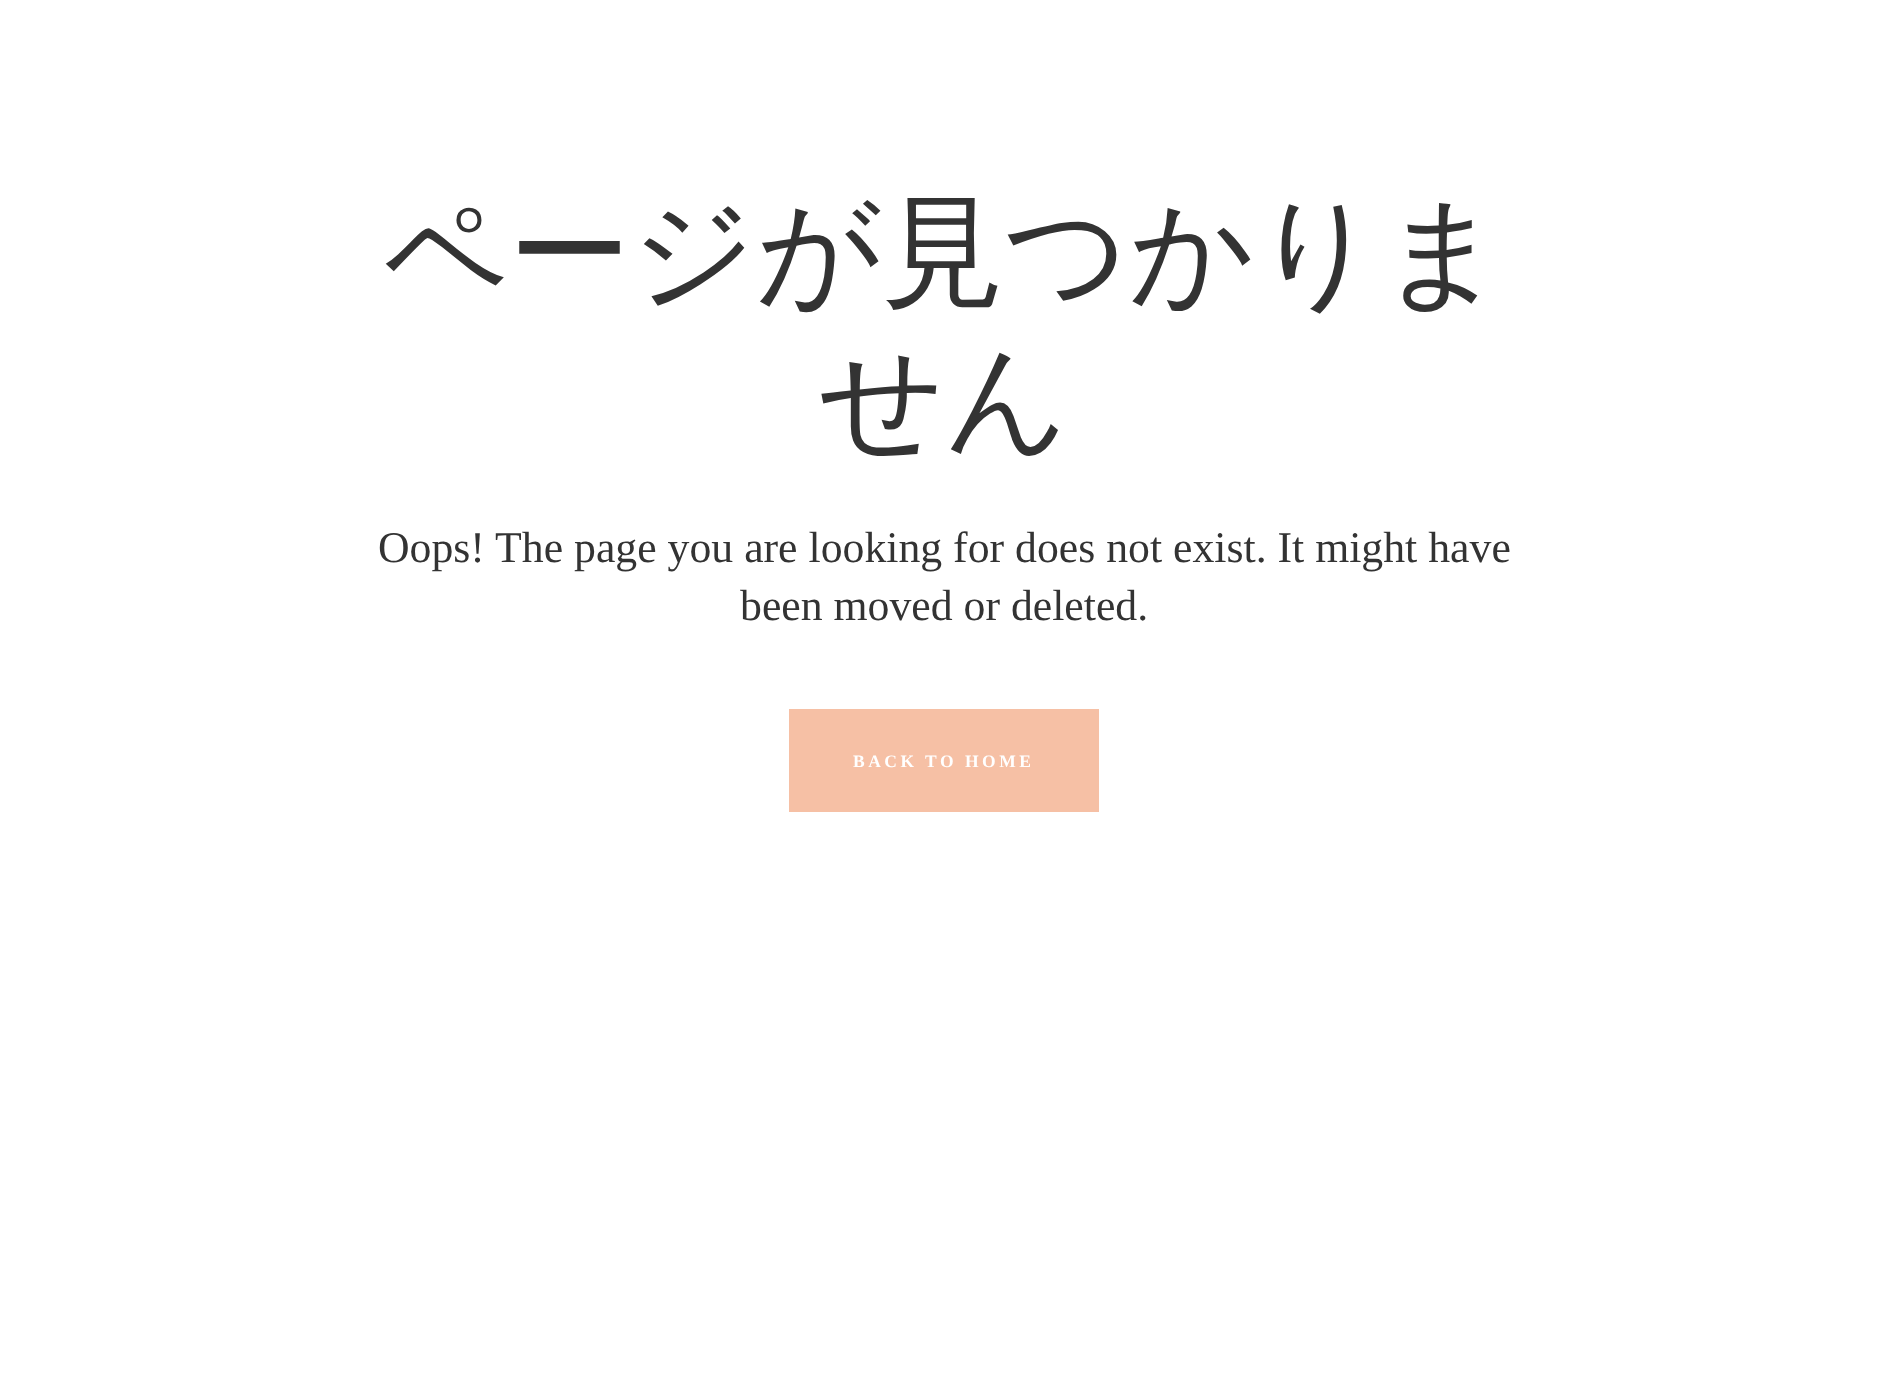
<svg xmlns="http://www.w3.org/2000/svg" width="1887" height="1394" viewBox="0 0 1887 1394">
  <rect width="100%" height="100%" fill="rgb(255,255,255)"/>
  <g font-family="WenQuanYi Zen Hei" font-size="122.5" font-weight="500" fill="rgb(51,51,51)">
    <text x="383" y="294">ページが見つかりま</text>
    <text x="819" y="441">せん</text>
  </g>
  <g font-family="Liberation Serif" font-size="43.75" fill="rgb(51,51,51)">
    <text x="378" y="562">Oops! The page you are looking for does not exist. It might have</text>
    <text x="740" y="620">been moved or deleted.</text>
  </g>
  <rect x="789" y="709" width="310" height="103" fill="rgb(246,192,165)"/>
  <text x="853" y="767" font-family="Liberation Serif" font-size="17.5" font-weight="bold" letter-spacing="3.5" fill="rgb(255,255,255)">BACK TO HOME</text>
</svg>
